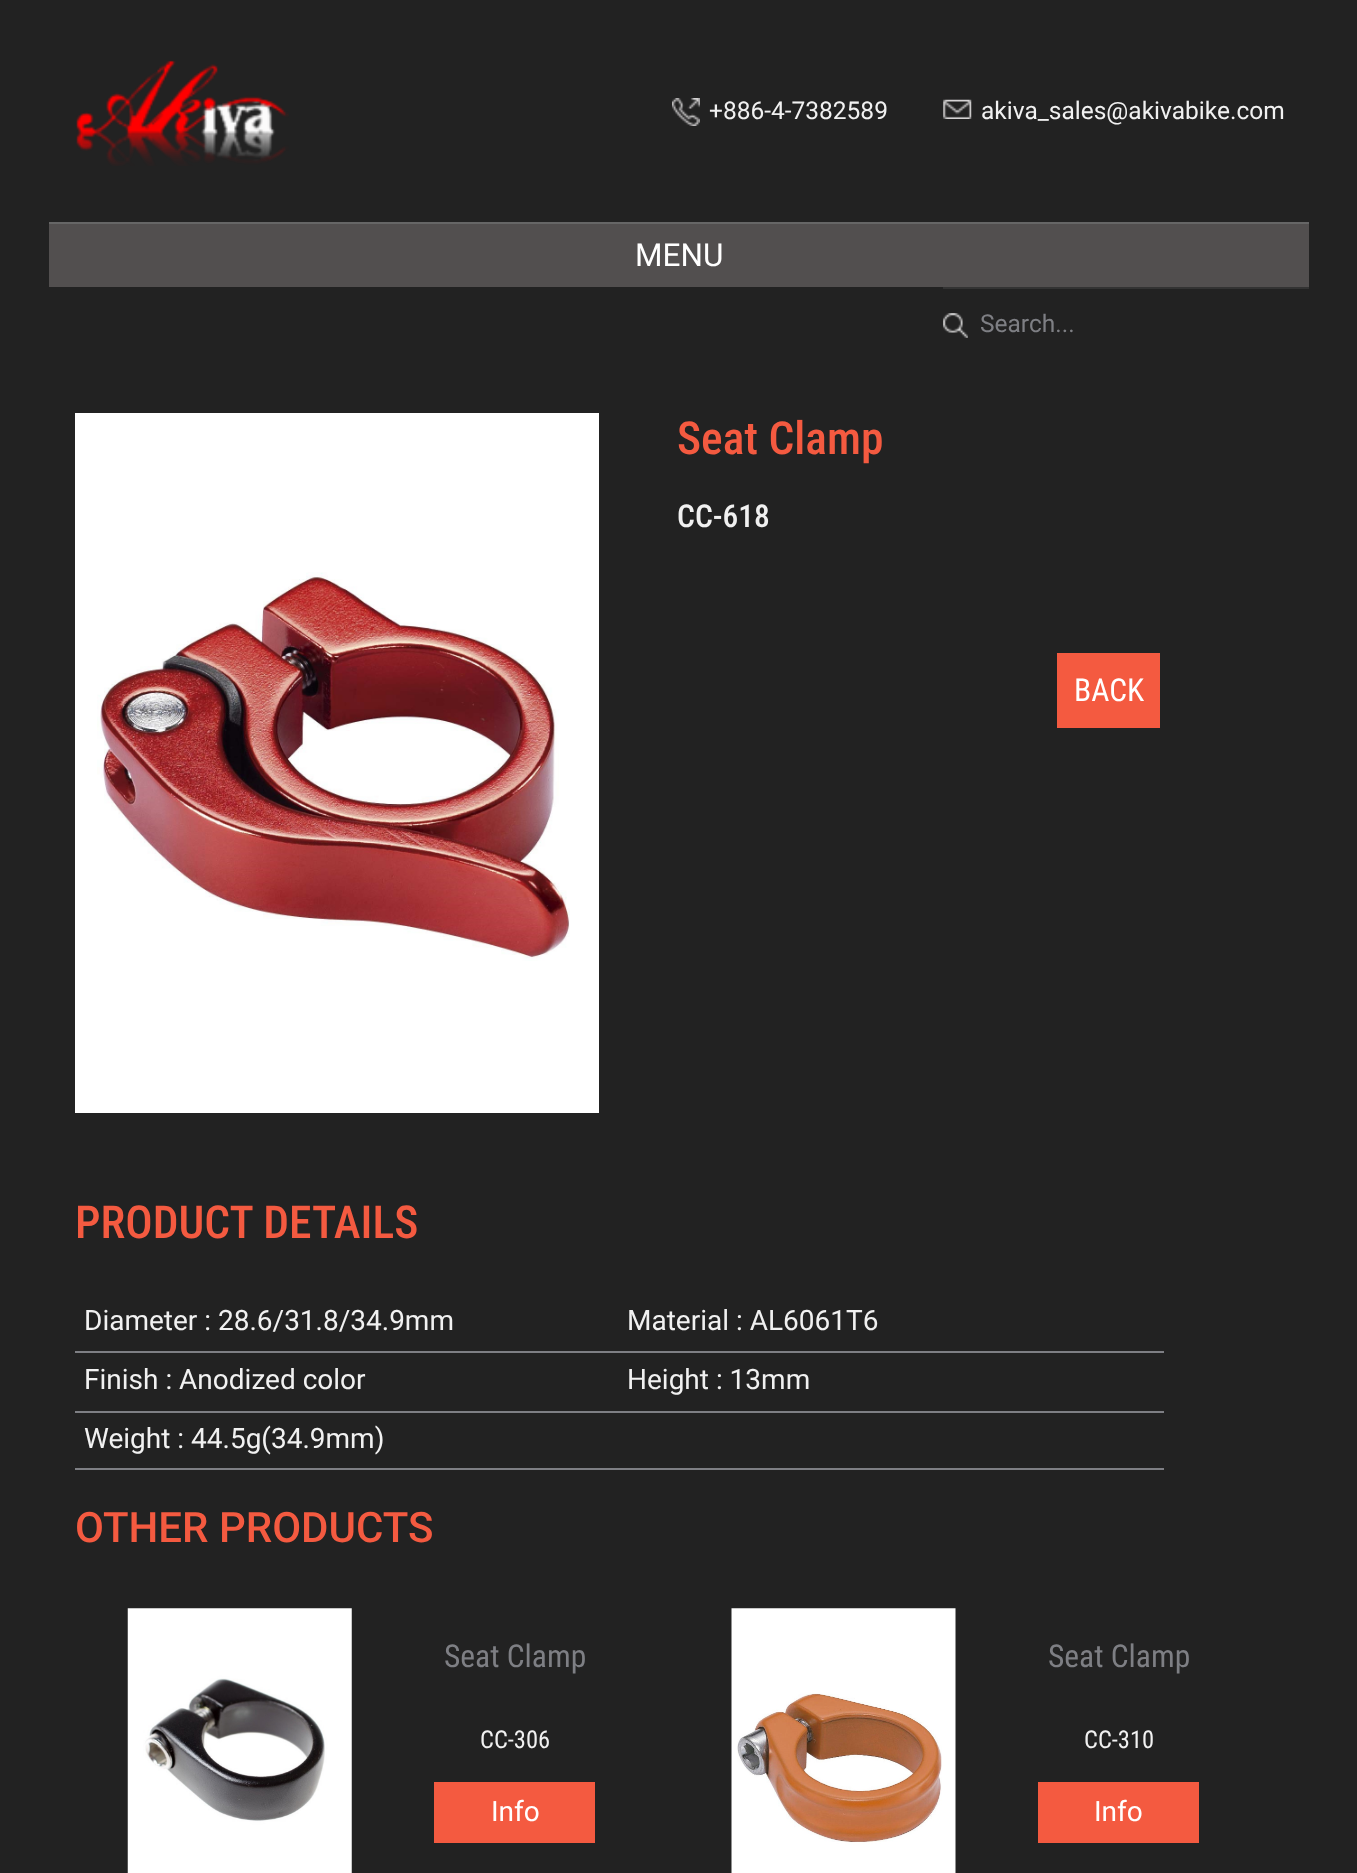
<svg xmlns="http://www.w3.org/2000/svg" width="1357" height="1873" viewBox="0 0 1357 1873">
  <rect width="100%" height="100%" fill="rgb(34,34,34)"/>
  <rect x="49" y="222" width="1260" height="2" fill="rgb(102,102,102)"/>
  <image x="76" y="60" width="213" height="106" href="pic1.png"/>
  <image x="672" y="98" width="28" height="28" href="pic2.png"/>
  <text x="709" y="119" font-family="Roboto" font-size="24.5" fill="rgb(241,241,241)">+886-4-7382589</text>
  <image x="943" y="99" width="29" height="20" href="pic3.png"/>
  <text x="981" y="119" font-family="Roboto" font-size="24.5" fill="rgb(241,241,241)">akiva_sales@akivabike.com</text>
  <rect x="49" y="224" width="1260" height="63" fill="rgb(82,79,79)"/>
  <text x="635" y="266" font-family="Roboto" font-size="31.5" fill="rgb(255,255,255)">MENU</text>
  <image x="943" y="313" width="25" height="25" href="pic4.png"/>
  <rect x="943" y="287" width="366" height="2" fill="rgb(51,51,51)"/>
  <text x="980" y="332" font-family="Roboto" font-size="24.5" fill="rgb(126,127,132)">Search...</text>
  <rect x="75" y="413" width="524" height="700" fill="rgb(255,255,255)"/>
  <image x="97" y="572" width="473" height="389" href="pic5.png"/>
  <text x="677" y="454" font-family="Roboto Condensed" font-size="45.5" font-weight="500" fill="rgb(244,90,64)">Seat Clamp</text>
  <text x="677" y="527" font-family="Roboto Condensed" font-size="31.5" font-weight="500" fill="rgb(241,241,241)">CC-618</text>
  <rect x="1057" y="653" width="103" height="75" fill="rgb(244,90,64)"/>
  <text x="1074" y="701" font-family="Roboto Condensed" font-size="31.5" fill="rgb(255,255,255)">BACK</text>
  <text x="75" y="1238" font-family="Roboto Condensed" font-size="45.5" font-weight="500" fill="rgb(244,90,64)">PRODUCT DETAILS</text>
  <rect x="75" y="1351" width="1089" height="2" fill="rgb(126,127,132)"/>
  <g font-family="Roboto" font-size="28" fill="rgb(241,241,241)">
    <text x="84" y="1330">Diameter : 28.6/31.8/34.9mm</text>
    <text x="627" y="1330">Material : AL6061T6</text>
  </g>
  <rect x="75" y="1411" width="1089" height="2" fill="rgb(126,127,132)"/>
  <g font-family="Roboto" font-size="28" fill="rgb(241,241,241)">
    <text x="84" y="1389">Finish : Anodized color</text>
    <text x="627" y="1389">Height : 13mm</text>
  </g>
  <rect x="75" y="1468" width="1089" height="2" fill="rgb(126,127,132)"/>
  <text x="84" y="1448" font-family="Roboto" font-size="28" fill="rgb(241,241,241)">Weight : 44.5g(34.9mm)</text>
  <text x="75" y="1542" font-family="Roboto" font-size="42" font-weight="500" fill="rgb(244,90,64)">OTHER PRODUCTS</text>
  <image x="127" y="1608" width="225" height="265" href="pic6.png"/>
  <text x="444" y="1667" font-family="Roboto Condensed" font-size="31.5" fill="rgb(126,127,132)">Seat Clamp</text>
  <text x="480" y="1748" font-family="Roboto Condensed" font-size="24.5" fill="rgb(241,241,241)">CC-306</text>
  <rect x="434" y="1782" width="161" height="61" fill="rgb(244,90,64)"/>
  <text x="491" y="1821" font-family="Roboto" font-size="28" fill="rgb(255,255,255)">Info</text>
  <image x="731" y="1608" width="225" height="265" href="pic7.png"/>
  <text x="1048" y="1667" font-family="Roboto Condensed" font-size="31.5" fill="rgb(126,127,132)">Seat Clamp</text>
  <text x="1084" y="1748" font-family="Roboto Condensed" font-size="24.5" fill="rgb(241,241,241)">CC-310</text>
  <rect x="1038" y="1782" width="161" height="61" fill="rgb(244,90,64)"/>
  <text x="1094" y="1821" font-family="Roboto" font-size="28" fill="rgb(255,255,255)">Info</text>
</svg>
